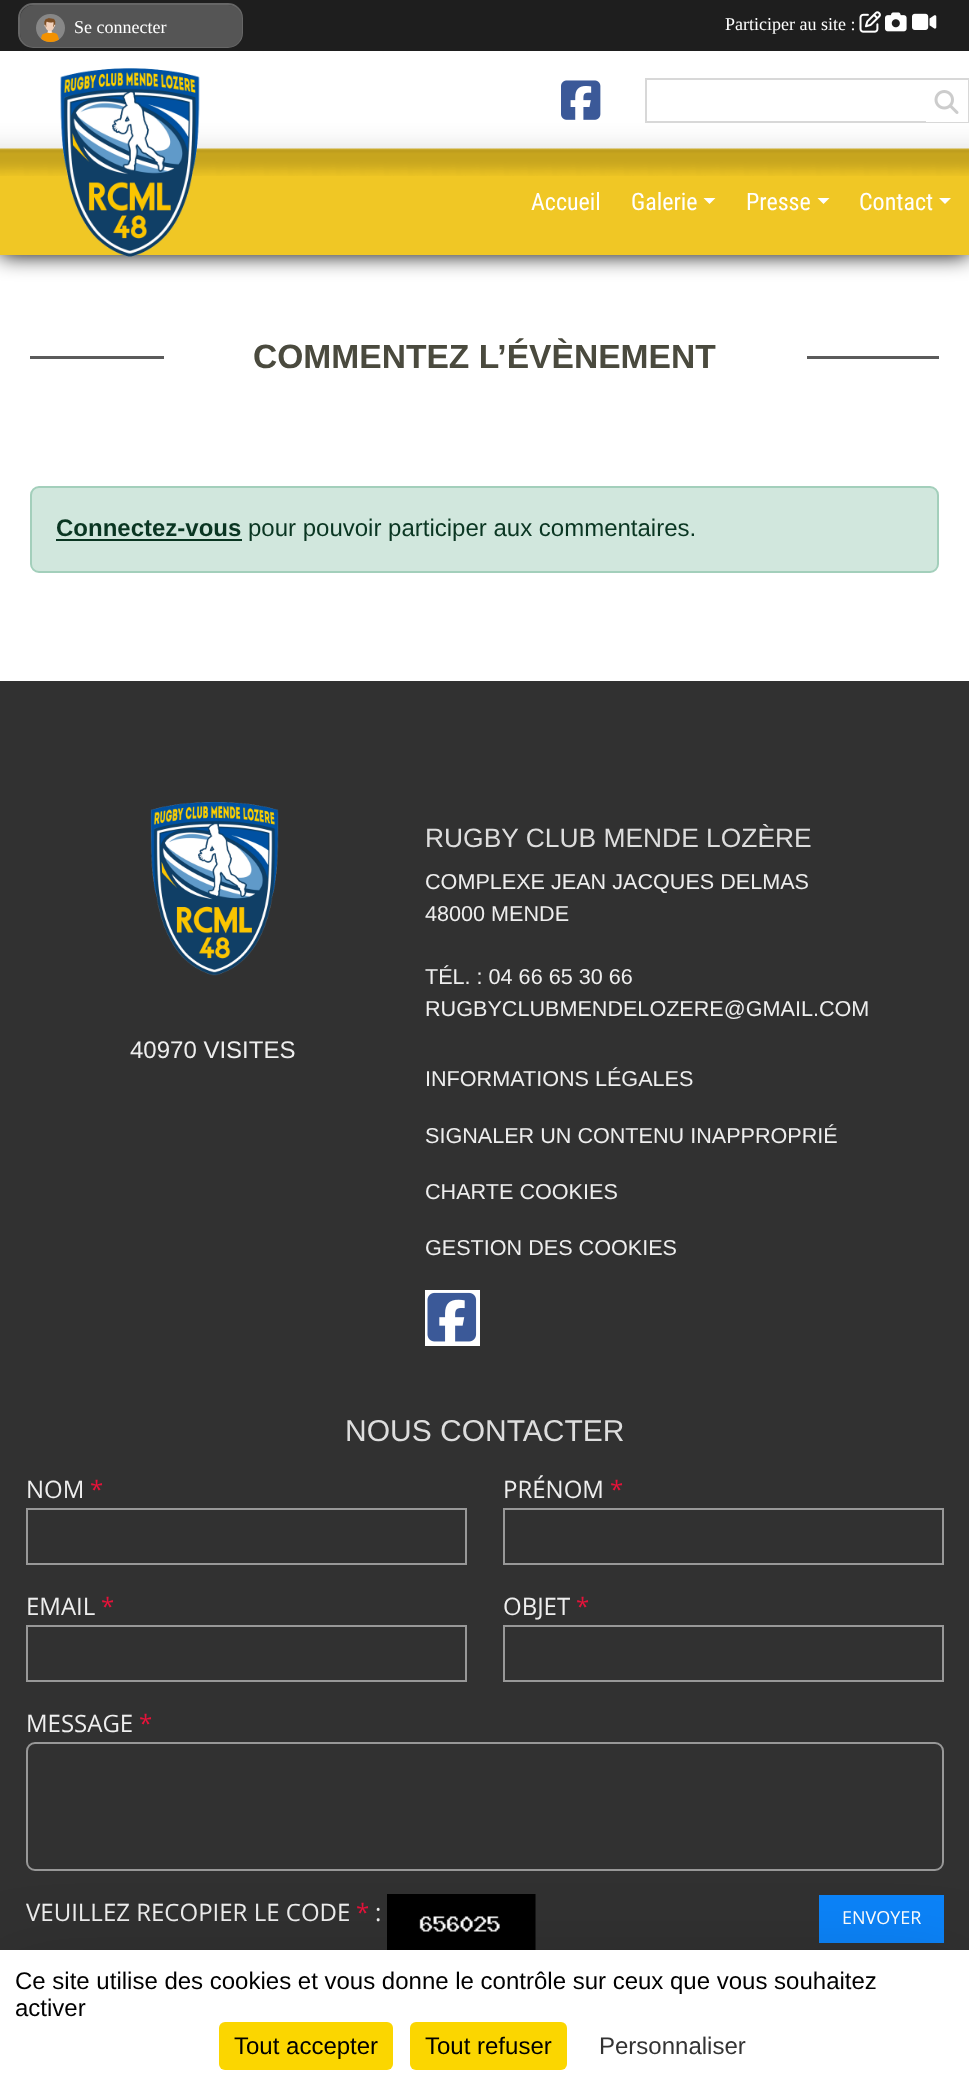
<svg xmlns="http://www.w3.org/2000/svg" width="969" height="2084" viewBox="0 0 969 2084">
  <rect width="100%" height="100%" fill="rgb(49,49,49)"/>
  <rect x="0" y="255" width="969" height="426" fill="rgb(255,255,255)"/>
  <rect x="0" y="51" width="969" height="204" fill="rgb(0,0,0)" filter="blur(11px)"/>
  <rect x="0" y="0" width="969" height="51" fill="rgb(30,30,30)"/>
  <rect x="19" y="4" width="223" height="43" rx="14" fill="rgb(51,51,51)" stroke="rgb(102,102,102)" stroke-width="2"/>
  <rect x="20" y="5" width="222" height="42" rx="14" fill="rgb(85,85,85)"/>
  <image x="36" y="14" width="29" height="28" href="pic1.png"/>
  <g font-family="Liberation Serif" font-size="18" fill="rgb(255,255,255)">
    <text x="74" y="33">Se connecter</text>
    <text x="725" y="30">Participer au site :</text>
  </g>
  <image x="859" y="11" width="22" height="22" href="pic2.png"/>
  <image x="885" y="12" width="22" height="20" href="pic3.png"/>
  <image x="912" y="13" width="25" height="17" href="pic4.png"/>
  <rect x="0" y="148" width="969" height="107" fill="rgb(240,199,37)"/>
  <image x="0" y="51" width="969" height="125" href="pic5.png"/>
  <image x="60" y="68" width="140" height="189" href="pic6.png"/>
  <image x="561" y="80" width="40" height="40" href="pic7.png"/>
  <rect x="646" y="79" width="322" height="43" fill="none" stroke="rgb(216,216,216)" stroke-width="2"/>
  <rect x="926" y="80" width="42" height="42" fill="rgb(255,255,255)"/>
  <image x="934" y="90" width="25" height="24" href="pic8.png"/>
  <g font-family="Roboto Condensed" font-size="24" fill="rgb(255,255,255)">
    <text x="531" y="210">Accueil</text>
    <text x="631" y="210">Galerie</text>
  </g>
  <path d="M703.5 198H715.5L709.5 204Z" fill="rgb(255,255,255)"/>
  <text x="746" y="210" font-family="Roboto Condensed" font-size="24" fill="rgb(255,255,255)">Presse</text>
  <path d="M817.5 198H829.5L823.5 204Z" fill="rgb(255,255,255)"/>
  <text x="859" y="210" font-family="Roboto Condensed" font-size="24" fill="rgb(255,255,255)">Contact</text>
  <path d="M939 198H951L945 204Z" fill="rgb(255,255,255)"/>
  <rect x="30" y="356" width="909" height="3" fill="rgb(91,91,91)"/>
  <rect x="164" y="356" width="643" height="3" fill="rgb(255,255,255)"/>
  <text x="253" y="368" font-family="Liberation Sans" font-size="33.6" font-weight="bold" fill="rgb(74,74,62)">COMMENTEZ L’ÉVÈNEMENT</text>
  <rect x="31" y="487" width="907" height="85" rx="8" fill="rgb(209,231,221)" stroke="rgb(163,207,187)" stroke-width="2"/>
  <text x="56" y="536" font-family="Liberation Sans" font-size="24" font-weight="bold" fill="rgb(10,54,34)">Connectez-vous</text>
  <rect x="56" y="539" width="186" height="2" fill="rgb(10,54,34)"/>
  <text x="248" y="536" font-family="Liberation Sans" font-size="24" fill="rgb(10,54,34)">pour pouvoir participer aux commentaires.</text>
  <image x="150" y="802" width="129" height="174" href="pic9.png"/>
  <text x="130" y="1058" font-family="Liberation Sans" font-size="24" fill="rgb(238,238,238)">40970 VISITES</text>
  <text x="425" y="847" font-family="Liberation Sans" font-size="26.4" fill="rgb(221,221,221)">RUGBY CLUB MENDE LOZÈRE</text>
  <g font-family="Liberation Sans" font-size="21.6" fill="rgb(238,238,238)">
    <text>
      <tspan x="425" y="889">COMPLEXE JEAN JACQUES DELMAS</tspan>
      <tspan x="425" y="921">48000 MENDE</tspan>
    </text>
    <text>
      <tspan x="425" y="984">TÉL. : 04 66 65 30 66</tspan>
      <tspan x="425" y="1016">RUGBYCLUBMENDELOZERE@GMAIL.COM</tspan>
    </text>
    <text x="425" y="1086">INFORMATIONS LÉGALES</text>
    <text x="425" y="1143">SIGNALER UN CONTENU INAPPROPRIÉ</text>
    <text x="425" y="1199">CHARTE COOKIES</text>
    <text x="425" y="1255">GESTION DES COOKIES</text>
  </g>
  <rect x="425" y="1290" width="55" height="56" fill="rgb(255,255,255)"/>
  <image x="427" y="1292" width="50" height="50" href="pic10.png"/>
  <text x="345" y="1441" font-family="Liberation Sans" font-size="30" fill="rgb(221,221,221)">NOUS CONTACTER</text>
  <text x="26" y="1498" font-family="Open Sans" font-size="24" fill="rgb(238,238,238)">NOM</text>
  <text x="90" y="1498" font-family="Open Sans" font-size="24" fill="rgb(228,19,58)">*</text>
  <rect x="27" y="1509" width="439" height="55" fill="none" stroke="rgb(152,152,152)" stroke-width="2"/>
  <text x="26" y="1615" font-family="Open Sans" font-size="24" fill="rgb(238,238,238)">EMAIL</text>
  <text x="101" y="1615" font-family="Open Sans" font-size="24" fill="rgb(228,19,58)">*</text>
  <rect x="27" y="1626" width="439" height="55" fill="none" stroke="rgb(152,152,152)" stroke-width="2"/>
  <text x="503" y="1498" font-family="Open Sans" font-size="24" fill="rgb(238,238,238)">PRÉNOM</text>
  <text x="610" y="1498" font-family="Open Sans" font-size="24" fill="rgb(228,19,58)">*</text>
  <rect x="504" y="1509" width="439" height="55" fill="none" stroke="rgb(152,152,152)" stroke-width="2"/>
  <text x="503" y="1615" font-family="Open Sans" font-size="24" fill="rgb(238,238,238)">OBJET</text>
  <text x="576" y="1615" font-family="Open Sans" font-size="24" fill="rgb(228,19,58)">*</text>
  <rect x="504" y="1626" width="439" height="55" fill="none" stroke="rgb(152,152,152)" stroke-width="2"/>
  <text x="26" y="1732" font-family="Open Sans" font-size="24" fill="rgb(238,238,238)">MESSAGE</text>
  <text x="139" y="1732" font-family="Open Sans" font-size="24" fill="rgb(228,19,58)">*</text>
  <rect x="27" y="1743" width="916" height="127" rx="8" fill="none" stroke="rgb(152,152,152)" stroke-width="2"/>
  <text x="26" y="1921" font-family="Open Sans" font-size="24" fill="rgb(238,238,238)">VEUILLEZ RECOPIER LE CODE</text>
  <text x="356" y="1921" font-family="Open Sans" font-size="24" fill="rgb(228,19,58)">*</text>
  <text x="375" y="1921" font-family="Open Sans" font-size="24" fill="rgb(238,238,238)">:</text>
  <image x="387" y="1894" width="149" height="56" href="pic11.png"/>
  <rect x="819" y="1895" width="125" height="48" fill="rgb(12,131,248)"/>
  <text x="842" y="1924" font-family="Open Sans" font-size="18" fill="rgb(255,255,255)">ENVOYER</text>
  <rect x="0" y="1980" width="969" height="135" fill="rgba(0,0,0,0.25)" filter="blur(45px)"/>
  <rect x="0" y="1950" width="969" height="134" fill="rgb(255,255,255)"/>
  <g font-family="Liberation Sans" font-size="24" fill="rgb(0,0,0)">
    <text>
      <tspan x="15" y="1989">Ce site utilise des cookies et vous donne le contrôle sur ceux que vous souhaitez</tspan>
      <tspan x="15" y="2016">activer</tspan>
    </text>
  </g>
  <rect x="219" y="2022" width="174" height="48" rx="6" fill="rgb(251,214,0)"/>
  <text x="234" y="2054" font-family="Liberation Sans" font-size="24" fill="rgb(0,0,0)">Tout accepter</text>
  <rect x="410" y="2022" width="157" height="48" rx="6" fill="rgb(251,214,0)"/>
  <text x="425" y="2054" font-family="Liberation Sans" font-size="24" fill="rgb(0,0,0)">Tout refuser</text>
  <text x="599" y="2054" font-family="Liberation Sans" font-size="24" fill="rgb(51,51,51)">Personnaliser</text>
</svg>
